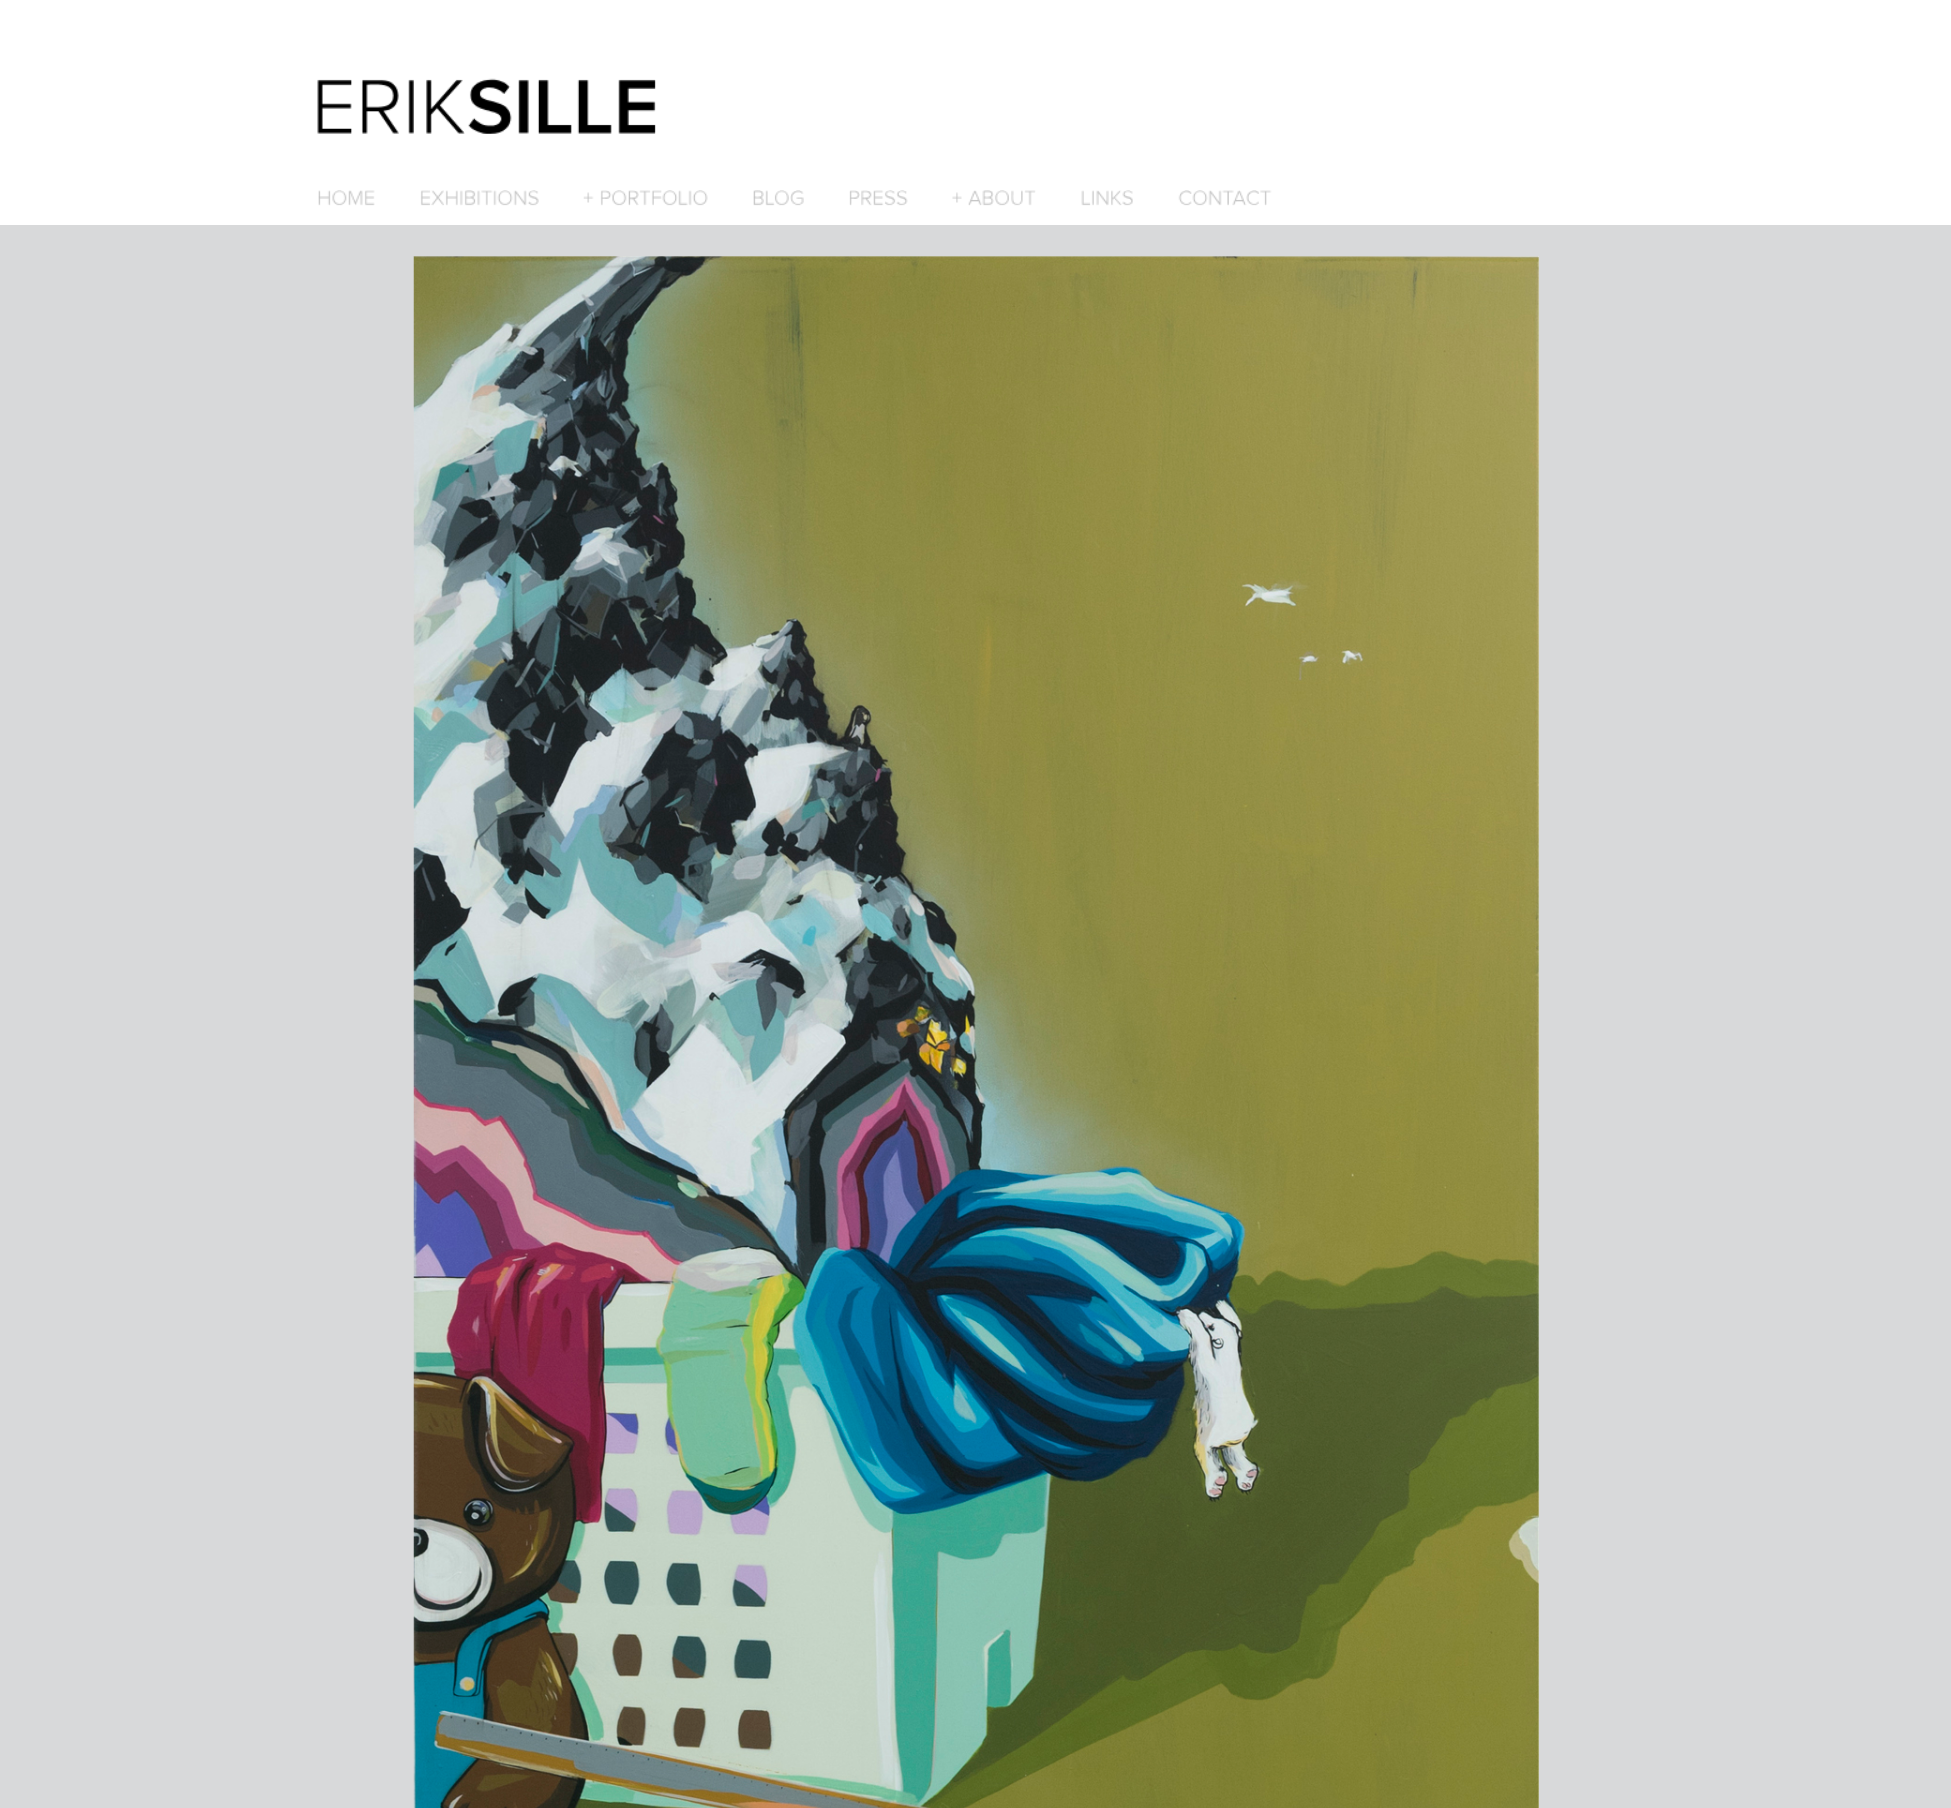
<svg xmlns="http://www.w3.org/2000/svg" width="1951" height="1808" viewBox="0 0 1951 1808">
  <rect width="100%" height="100%" fill="rgb(216,217,218)"/>
  <rect x="0" y="0" width="1951" height="225" fill="rgb(255,255,255)"/>
  <image x="317" y="79" width="148" height="55" href="pic1.png"/>
  <image x="468" y="78" width="188" height="56" href="pic2.png"/>
  <image x="318" y="190" width="57" height="16" href="pic3.png"/>
  <image x="420" y="190" width="119" height="16" href="pic4.png"/>
  <image x="583" y="192" width="11" height="11" href="pic5.png"/>
  <image x="600" y="190" width="108" height="16" href="pic6.png"/>
  <image x="753" y="190" width="51" height="16" href="pic7.png"/>
  <image x="849" y="190" width="59" height="16" href="pic8.png"/>
  <image x="952" y="192" width="10" height="11" href="pic9.png"/>
  <image x="968" y="190" width="68" height="16" href="pic10.png"/>
  <image x="1081" y="190" width="52" height="16" href="pic11.png"/>
  <image x="1178" y="190" width="94" height="16" href="pic12.png"/>
  <rect x="414" y="256" width="1125" height="1552" fill="rgb(255,255,255)"/>
  <image x="413" y="256" width="1126" height="1552" href="pic13.png"/>
</svg>
